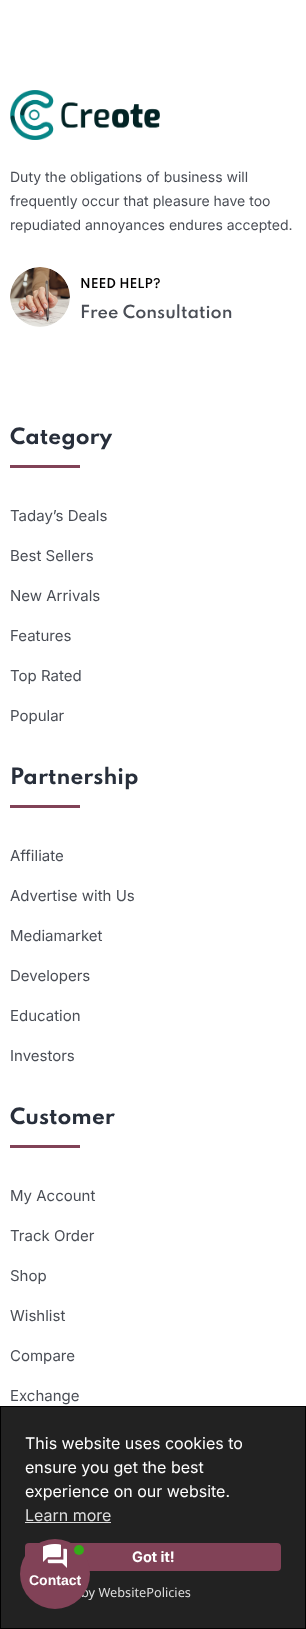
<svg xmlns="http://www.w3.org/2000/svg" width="306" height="1629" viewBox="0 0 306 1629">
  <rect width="100%" height="100%" fill="rgb(255,255,255)"/>
  <image x="10" y="90" width="150" height="50" href="pic1.png"/>
  <g font-family="Inter" font-size="14" fill="rgb(74,78,86)">
    <text>
      <tspan x="10" y="182">Duty the obligations of business will</tspan>
      <tspan x="10" y="206">frequently occur that pleasure have too</tspan>
      <tspan x="10" y="230">repudiated annoyances endures accepted.</tspan>
    </text>
  </g>
  <image x="10" y="267" width="60" height="60" href="pic2.png"/>
  <text x="80" y="288" font-family="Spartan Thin" font-size="12" font-weight="600" fill="rgb(2,1,1)">NEED HELP?</text>
  <text x="80" y="318" font-family="Spartan Thin" font-size="16" font-weight="600" fill="rgb(74,78,86)">Free Consultation</text>
  <text x="10" y="444" font-family="Spartan Thin" font-size="20" font-weight="bold" fill="rgb(40,47,59)">Category</text>
  <rect x="10" y="465" width="70" height="3" fill="rgb(129,66,87)"/>
  <g font-family="Inter" font-size="15" fill="rgb(74,78,86)">
    <text x="10" y="521">Taday’s Deals</text>
    <text x="10" y="561">Best Sellers</text>
    <text x="10" y="601">New Arrivals</text>
    <text x="10" y="641">Features</text>
    <text x="10" y="681">Top Rated</text>
    <text x="10" y="721">Popular</text>
  </g>
  <text x="10" y="784" font-family="Spartan Thin" font-size="20" font-weight="bold" fill="rgb(40,47,59)">Partnership</text>
  <rect x="10" y="805" width="70" height="3" fill="rgb(129,66,87)"/>
  <g font-family="Inter" font-size="15" fill="rgb(74,78,86)">
    <text x="10" y="861">Affiliate</text>
    <text x="10" y="901">Advertise with Us</text>
    <text x="10" y="941">Mediamarket</text>
    <text x="10" y="981">Developers</text>
    <text x="10" y="1021">Education</text>
    <text x="10" y="1061">Investors</text>
  </g>
  <text x="10" y="1124" font-family="Spartan Thin" font-size="20" font-weight="bold" fill="rgb(40,47,59)">Customer</text>
  <rect x="10" y="1145" width="70" height="3" fill="rgb(129,66,87)"/>
  <g font-family="Inter" font-size="15" fill="rgb(74,78,86)">
    <text x="10" y="1201">My Account</text>
    <text x="10" y="1241">Track Order</text>
    <text x="10" y="1281">Shop</text>
    <text x="10" y="1321">Wishlist</text>
    <text x="10" y="1361">Compare</text>
    <text x="10" y="1401">Exchange</text>
  </g>
  <rect x="0.5" y="1406.5" width="305" height="222" fill="rgb(34,34,34)" stroke="rgb(0,0,0)"/>
  <g font-family="Inter" font-size="16" fill="rgb(255,255,255)">
    <text>
      <tspan x="25" y="1449">This website uses cookies to</tspan>
      <tspan x="25" y="1473">ensure you get the best</tspan>
      <tspan x="25" y="1497">experience on our website.</tspan>
    </text>
  </g>
  <text x="25" y="1521" font-family="Inter" font-size="16" fill="rgb(222,222,222)">Learn more</text>
  <rect x="25" y="1522" width="86" height="1" fill="rgb(222,222,222)"/>
  <rect x="25" y="1543" width="256" height="28" rx="4" fill="rgb(129,66,87)"/>
  <text x="132" y="1562" font-family="Inter" font-size="14.5" font-weight="bold" fill="rgb(255,255,255)">Got it!</text>
  <text x="81" y="1597" font-family="Noto Sans" font-size="12.75" fill="rgb(222,222,222)">by WebsitePolicies</text>
  <circle cx="55" cy="1574" r="35" fill="rgb(129,66,87)"/>
  <circle cx="79" cy="1550" r="5" fill="rgb(53,172,25)"/>
  <image x="43" y="1544" width="24" height="24" href="pic3.png"/>
  <text x="29" y="1585" font-family="Liberation Sans" font-size="14" font-weight="bold" fill="rgb(255,255,255)">Contact</text>
</svg>
